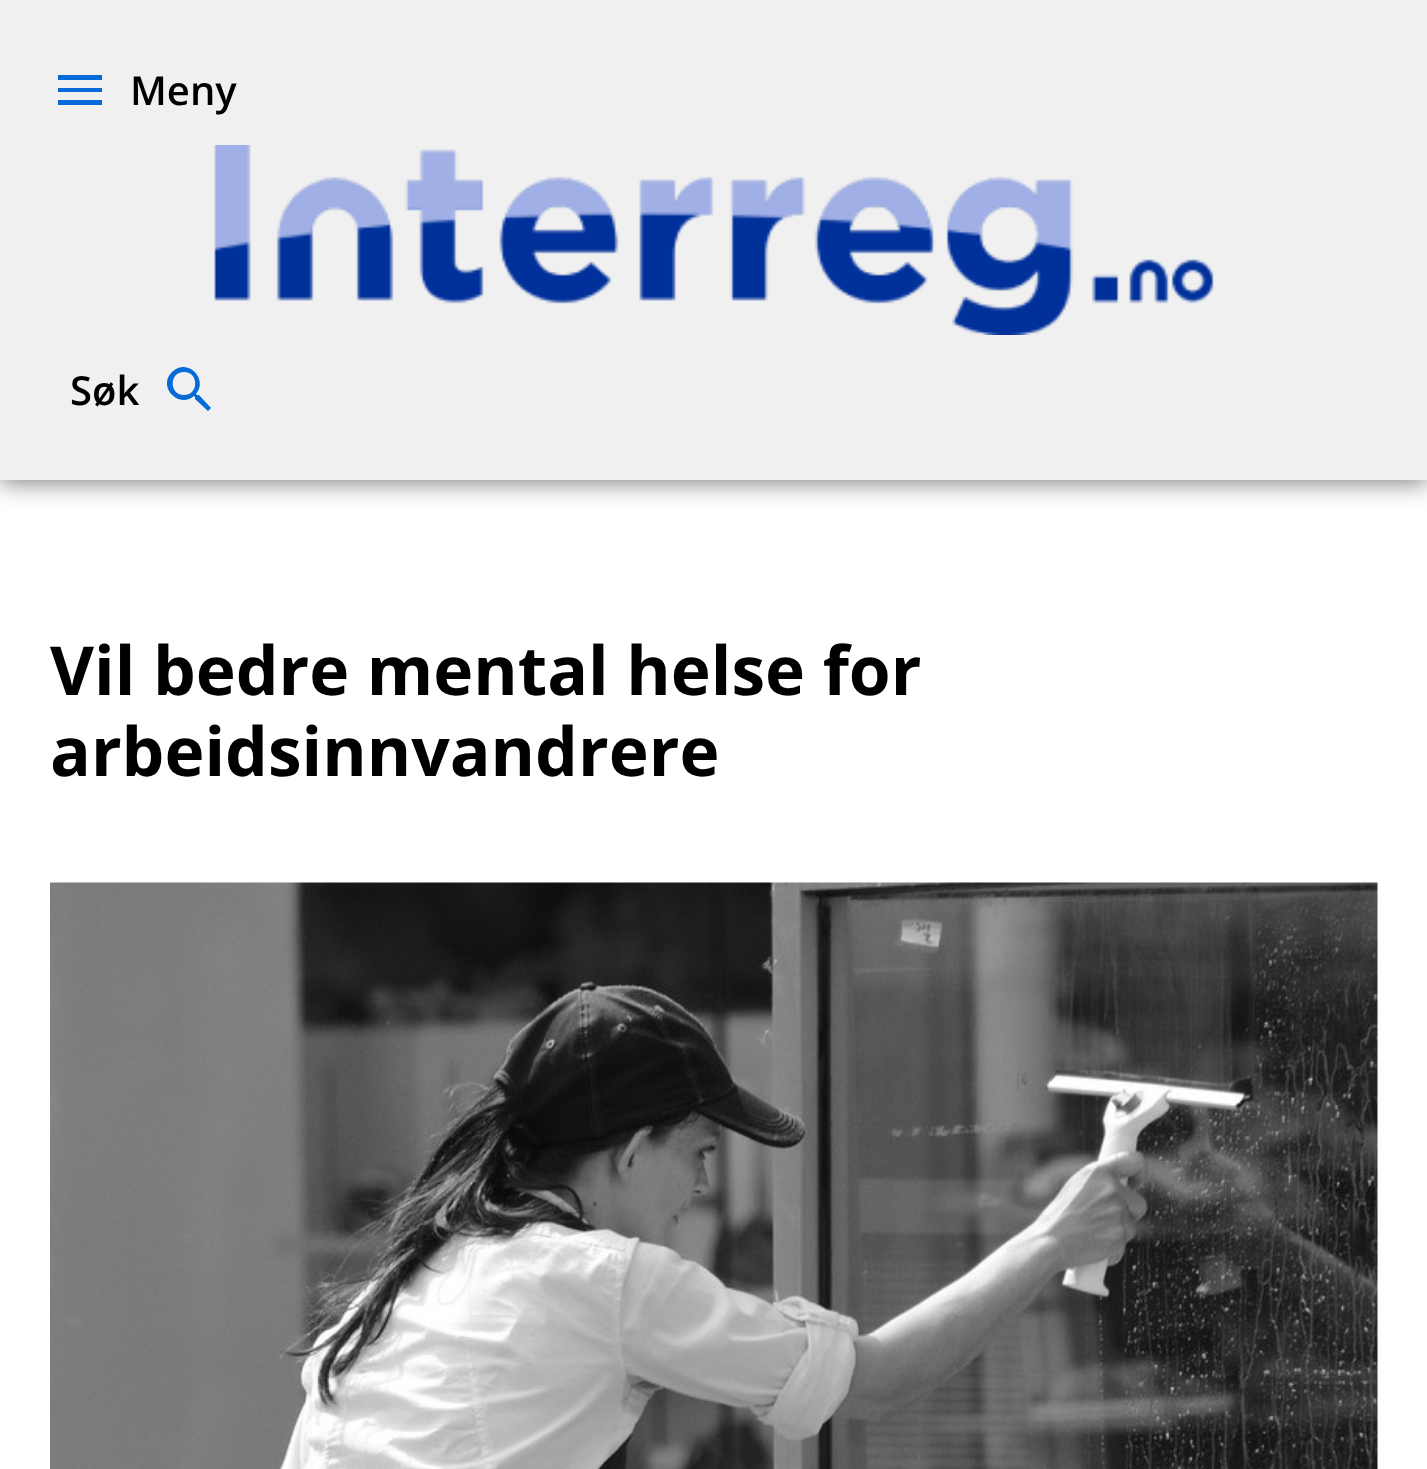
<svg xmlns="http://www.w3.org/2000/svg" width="1427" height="1469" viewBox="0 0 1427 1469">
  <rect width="100%" height="100%" fill="rgb(255,255,255)"/>
  <rect x="0" y="3" width="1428" height="480" fill="rgba(0,0,0,0.5)" filter="blur(12.5px)"/>
  <rect x="0" y="0" width="1427" height="480" fill="rgb(240,240,240)"/>
  <path d="M58 105H102V100H58ZM58 92H102V88H58ZM58 75V80H102V75Z" fill="rgb(4,107,215)"/>
  <text x="130" y="105" font-family="Open Sans" font-size="40" font-weight="600" fill="rgb(0,0,0)">Meny</text>
  <image x="214" y="145" width="1000" height="190" href="pic1.png"/>
  <text x="70" y="405" font-family="Open Sans" font-size="40" font-weight="600" fill="rgb(0,0,0)">Søk</text>
  <path d="M199 395H197L196 394C209 379 187 357 172 372C157 387 179 409 194 396L195 397V399L208 411L211 408ZM184 395C169 395 169 372 184 372C199 372 199 395 184 395Z" fill="rgb(4,107,215)"/>
  <g font-family="Open Sans" font-size="67.7" font-weight="bold" fill="rgb(0,0,0)">
    <text>
      <tspan x="50" y="695">Vil bedre mental helse for</tspan>
      <tspan x="50" y="776">arbeidsinnvandrere</tspan>
    </text>
  </g>
  <image x="50" y="882" width="1328" height="587" href="pic2.png"/>
</svg>
